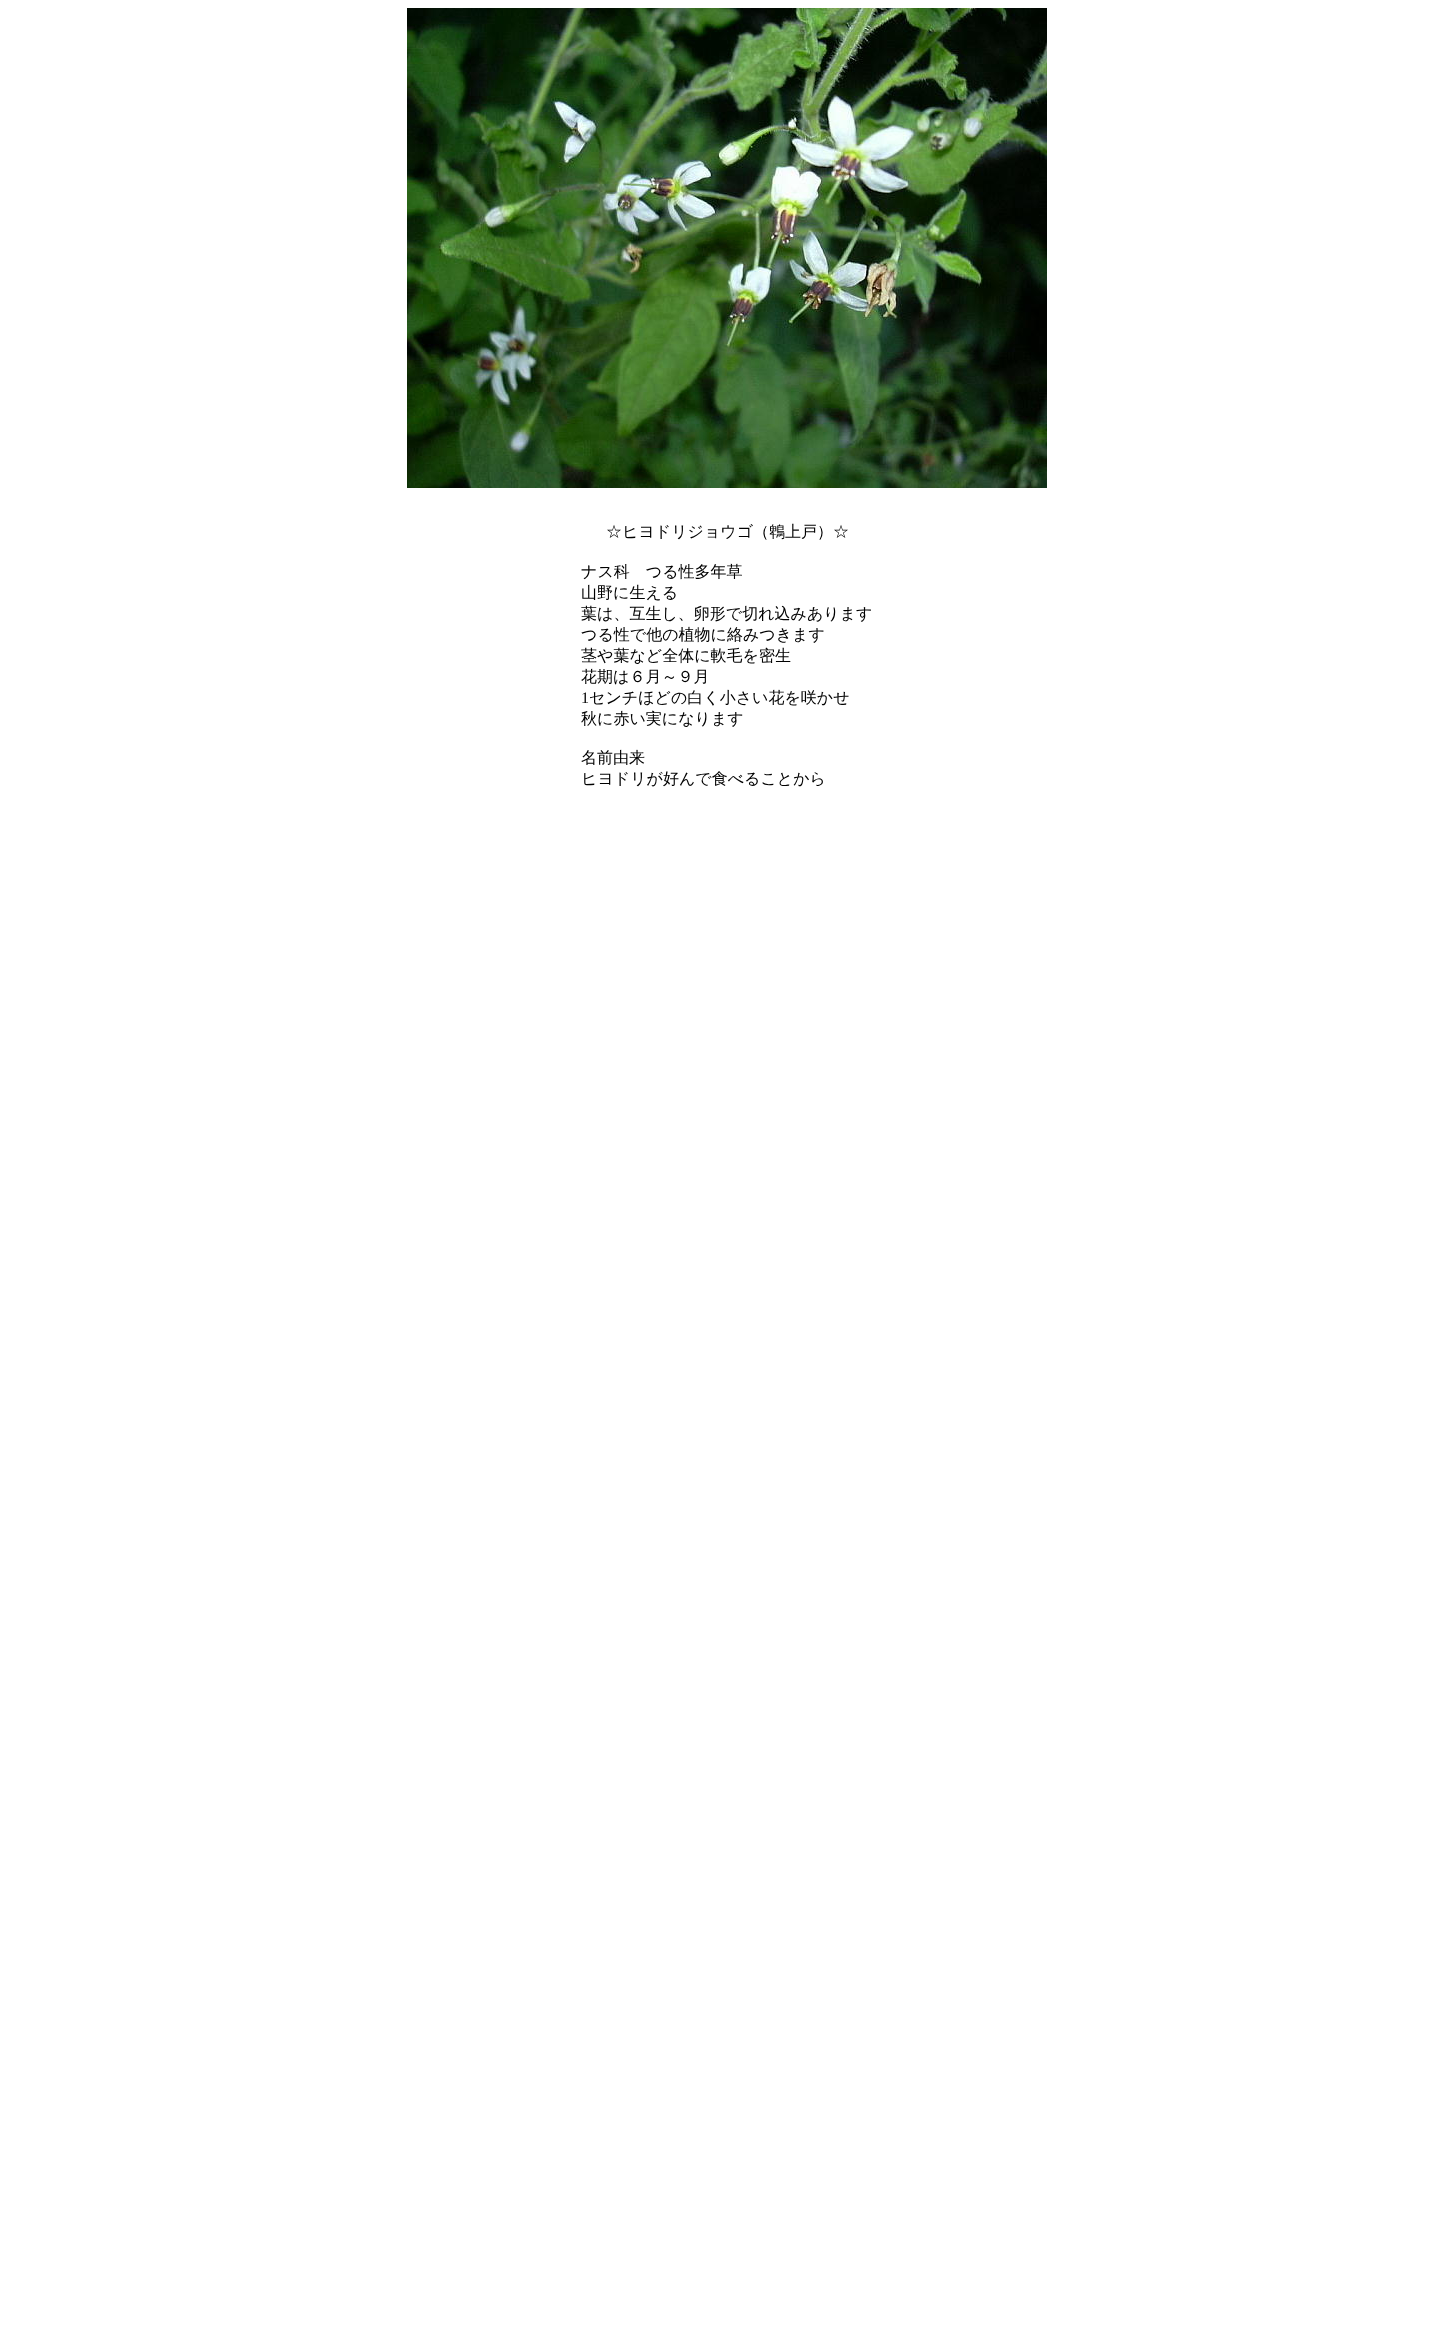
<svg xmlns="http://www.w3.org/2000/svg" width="1454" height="2350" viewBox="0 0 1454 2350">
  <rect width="100%" height="100%" fill="rgb(255,255,255)"/>
  <image x="407" y="8" width="640" height="480" href="pic1.png"/>
  <g font-family="WenQuanYi Zen Hei" font-size="16" font-weight="500" fill="rgb(0,0,0)">
    <text x="606" y="537">☆ヒヨドリジョウゴ（鵯上戸）☆</text>
    <text>
      <tspan x="581" y="577">ナス科　つる性多年草</tspan>
      <tspan x="581" y="598">山野に生える</tspan>
      <tspan x="581" y="619">葉は、互生し、卵形で切れ込みあります</tspan>
      <tspan x="581" y="640">つる性で他の植物に絡みつきます</tspan>
      <tspan x="581" y="661">茎や葉など全体に軟毛を密生</tspan>
      <tspan x="581" y="682">花期は６月～９月</tspan>
    </text>
  </g>
  <text x="581" y="703" font-family="Liberation Serif" font-size="16" fill="rgb(0,0,0)">1</text>
  <g font-family="WenQuanYi Zen Hei" font-size="16" font-weight="500" fill="rgb(0,0,0)">
    <text x="589" y="703">センチほどの白く小さい花を咲かせ</text>
    <text x="581" y="724">秋に赤い実になります</text>
    <text>
      <tspan x="581" y="763">名前由来</tspan>
      <tspan x="581" y="784">ヒヨドリが好んで食べることから</tspan>
    </text>
  </g>
</svg>
